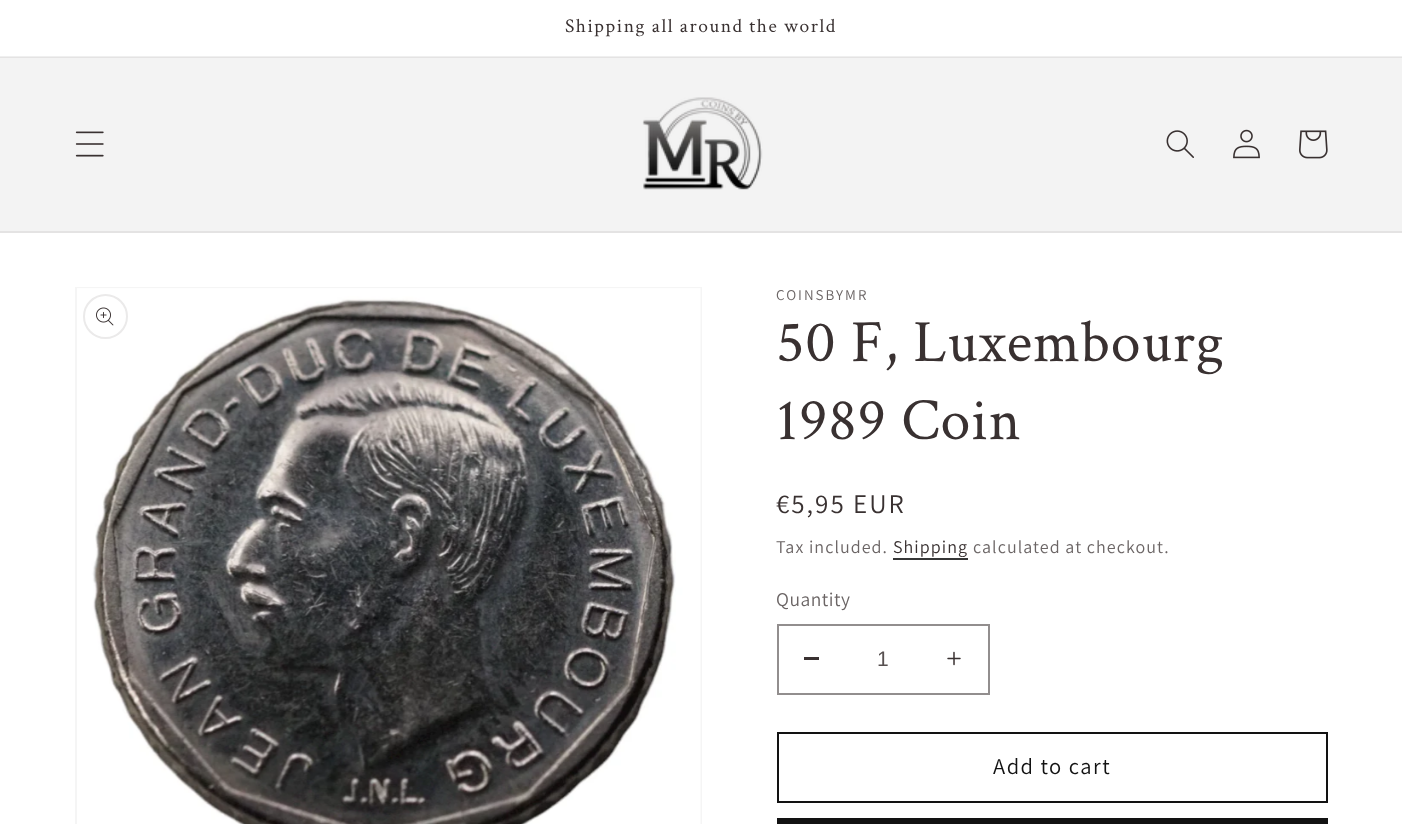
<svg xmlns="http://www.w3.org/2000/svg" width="1402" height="824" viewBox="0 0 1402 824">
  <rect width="100%" height="100%" fill="rgb(255,255,255)"/>
  <rect x="0" y="56" width="1402" height="1" fill="rgb(239,239,239)"/>
  <text x="565" y="32" font-family="Crimson Text" font-size="19.5" letter-spacing="1.5" fill="rgb(57,49,49)">Shipping all around the world</text>
  <rect x="0" y="58" width="1402" height="173" fill="rgb(243,243,243)"/>
  <rect x="0" y="57" width="1402" height="1" fill="rgb(228,227,227)"/>
  <rect x="0" y="231" width="1402" height="2" fill="rgb(228,227,227)"/>
  <image x="75" y="131" width="29" height="26" href="pic1.png"/>
  <image x="642" y="97" width="121" height="93" href="pic2.png"/>
  <image x="1166" y="130" width="28" height="28" href="pic3.png"/>
  <image x="1233" y="129" width="27" height="30" href="pic4.png"/>
  <image x="1299" y="130" width="29" height="29" href="pic5.png"/>
  <rect x="76" y="288" width="625" height="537" fill="none" stroke="rgb(245,245,245)" stroke-width="2"/>
  <image x="77" y="288" width="624" height="536" href="pic6.png"/>
  <circle cx="105.5" cy="316.5" r="21.5" fill="none" stroke="rgb(235,234,234)" stroke-width="2"/>
  <image x="96" y="307" width="18" height="19" href="pic7.png"/>
  <text x="776" y="300" font-family="Assistant" font-size="15" letter-spacing="2" fill="rgb(107,101,101)">COINSBYMR</text>
  <g font-family="Crimson Text" font-size="60" letter-spacing="0.9" fill="rgb(57,49,49)">
    <text>
      <tspan x="776" y="361">50 F, Luxembourg</tspan>
      <tspan x="776" y="439">1989 Coin</tspan>
    </text>
  </g>
  <text x="776" y="513" font-family="Assistant" font-size="27" letter-spacing="2" fill="rgb(57,49,49)">€5,95 EUR</text>
  <text x="776" y="553" font-family="Assistant" font-size="18" letter-spacing="1.05" fill="rgb(107,101,101)">Tax included.</text>
  <text x="893" y="553" font-family="Assistant" font-size="18" letter-spacing="1.05" fill="rgb(57,49,49)">Shipping</text>
  <rect x="893" y="558" width="75" height="2" fill="rgb(54,54,54)"/>
  <text x="973" y="553" font-family="Assistant" font-size="18" letter-spacing="1.05" fill="rgb(107,101,101)">calculated at checkout.</text>
  <text x="776" y="606" font-family="Assistant" font-size="19.5" letter-spacing="0.5" fill="rgb(107,101,101)">Quantity</text>
  <rect x="804" y="657" width="15" height="3" fill="rgb(57,49,49)"/>
  <image x="947" y="651" width="14" height="15" href="pic8.png"/>
  <rect x="778" y="625" width="211" height="69" fill="none" stroke="rgb(146,142,142)" stroke-width="2"/>
  <text x="877" y="666" font-family="Liberation Sans" font-size="21" fill="rgb(87,80,80)">1</text>
  <rect x="778" y="733" width="549" height="69" fill="none" stroke="rgb(18,18,18)" stroke-width="2"/>
  <text x="993" y="774" font-family="Assistant" font-size="22.5" letter-spacing="1.5" fill="rgb(18,18,18)">Add to cart</text>
  <rect x="777" y="818" width="551" height="6" fill="rgb(18,18,18)"/>
</svg>
